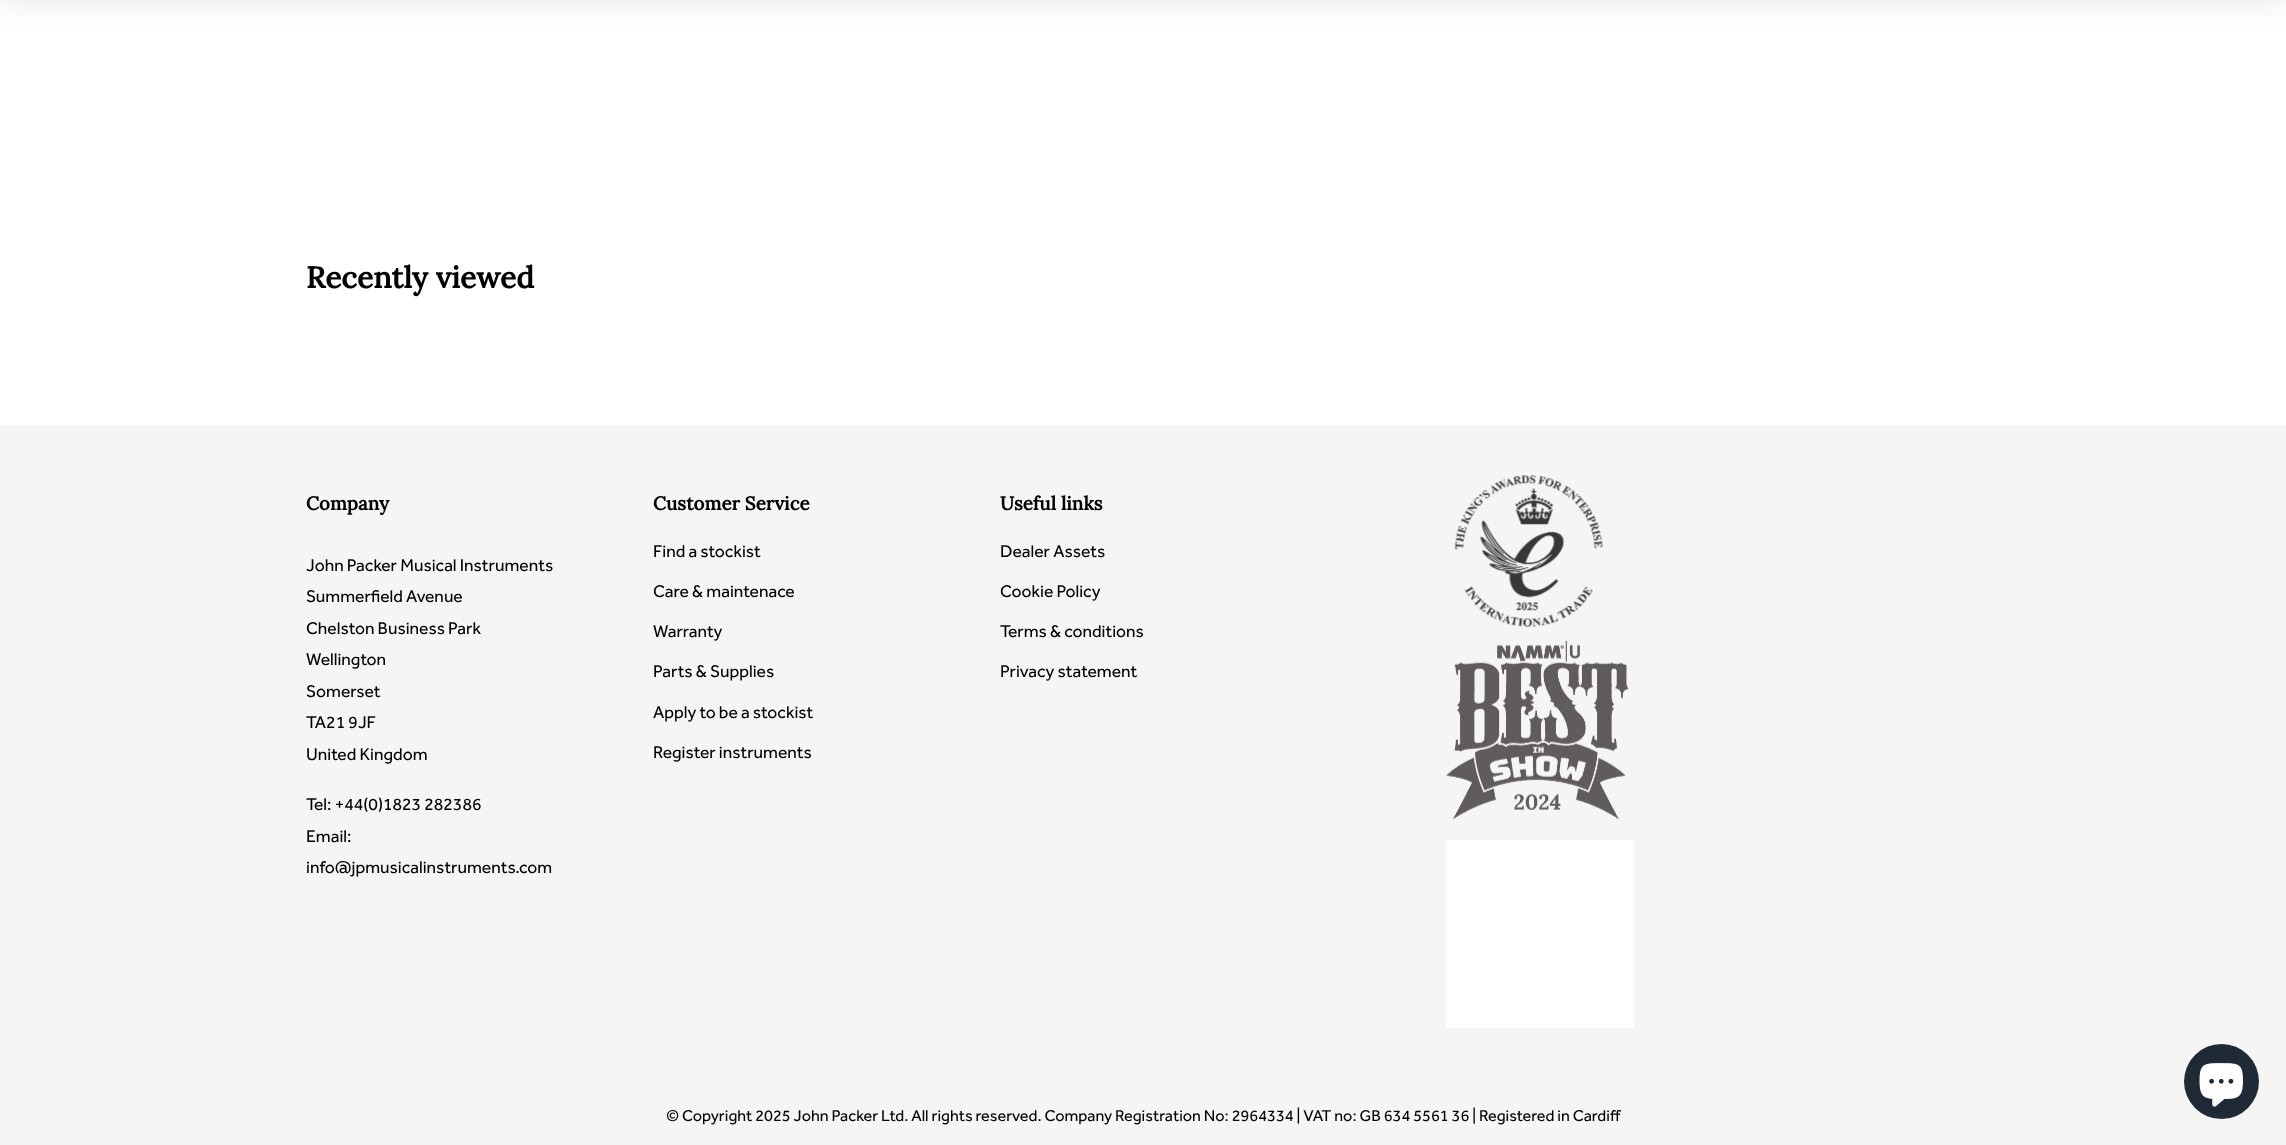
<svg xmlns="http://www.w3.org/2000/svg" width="2286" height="1145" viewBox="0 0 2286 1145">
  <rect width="100%" height="100%" fill="rgb(255,255,255)"/>
  <rect x="0" y="-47" width="2286" height="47" fill="rgba(0,0,0,0.1)" filter="blur(15.5px)"/>
  <text x="306" y="288" font-family="Lora" font-size="30" font-weight="bold" fill="rgb(0,0,0)">Recently viewed</text>
  <rect x="0" y="426" width="2286" height="719" fill="rgb(245,245,243)"/>
  <text x="306" y="510" font-family="Lora" font-size="18.75" font-weight="bold" fill="rgb(0,0,0)">Company</text>
  <g font-family="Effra" font-size="17.5" fill="rgb(0,0,0)">
    <text>
      <tspan x="306" y="571">John Packer Musical Instruments</tspan>
      <tspan x="306" y="602">Summerfield Avenue</tspan>
      <tspan x="306" y="634">Chelston Business Park</tspan>
      <tspan x="306" y="665">Wellington</tspan>
      <tspan x="306" y="697">Somerset</tspan>
      <tspan x="306" y="728">TA21 9JF</tspan>
      <tspan x="306" y="760">United Kingdom</tspan>
    </text>
    <text>
      <tspan x="306" y="810">Tel: +44(0)1823 282386</tspan>
      <tspan x="306" y="842">Email:</tspan>
      <tspan x="306" y="873">info@jpmusicalinstruments.com</tspan>
    </text>
  </g>
  <text x="653" y="510" font-family="Lora" font-size="18.75" font-weight="bold" fill="rgb(0,0,0)">Customer Service</text>
  <g font-family="Effra" font-size="17.5" fill="rgb(0,0,0)">
    <text x="653" y="557">Find a stockist</text>
    <text x="653" y="597">Care &amp; maintenace</text>
    <text x="653" y="637">Warranty</text>
    <text x="653" y="677">Parts &amp; Supplies</text>
    <text x="653" y="718">Apply to be a stockist</text>
    <text x="653" y="758">Register instruments</text>
  </g>
  <text x="1000" y="510" font-family="Lora" font-size="18.75" font-weight="bold" fill="rgb(0,0,0)">Useful links</text>
  <g font-family="Effra" font-size="17.5" fill="rgb(0,0,0)">
    <text x="1000" y="557">Dealer Assets</text>
    <text x="1000" y="597">Cookie Policy</text>
    <text x="1000" y="637">Terms &amp; conditions</text>
    <text x="1000" y="677">Privacy statement</text>
  </g>
  <image x="1454" y="475" width="149" height="153" href="pic1.png"/>
  <image x="1446" y="640" width="183" height="180" href="pic2.png"/>
  <rect x="1446" y="840" width="188" height="188" fill="rgb(255,255,255)"/>
  <g font-family="Effra" font-size="16.25" fill="rgb(0,0,0)">
    <text x="666" y="1121">© Copyright 2025 John Packer Ltd. All rights reserved. Company Registration No: 2964334 | VAT no: GB 634 5561 36 |</text>
    <text x="1479" y="1121">Registered in Cardiff</text>
  </g>
  <circle cx="2221.5" cy="1081.5" r="37.5" fill="rgb(32,42,54)"/>
  <image x="2199" y="1063" width="44" height="44" href="pic3.png"/>
</svg>
